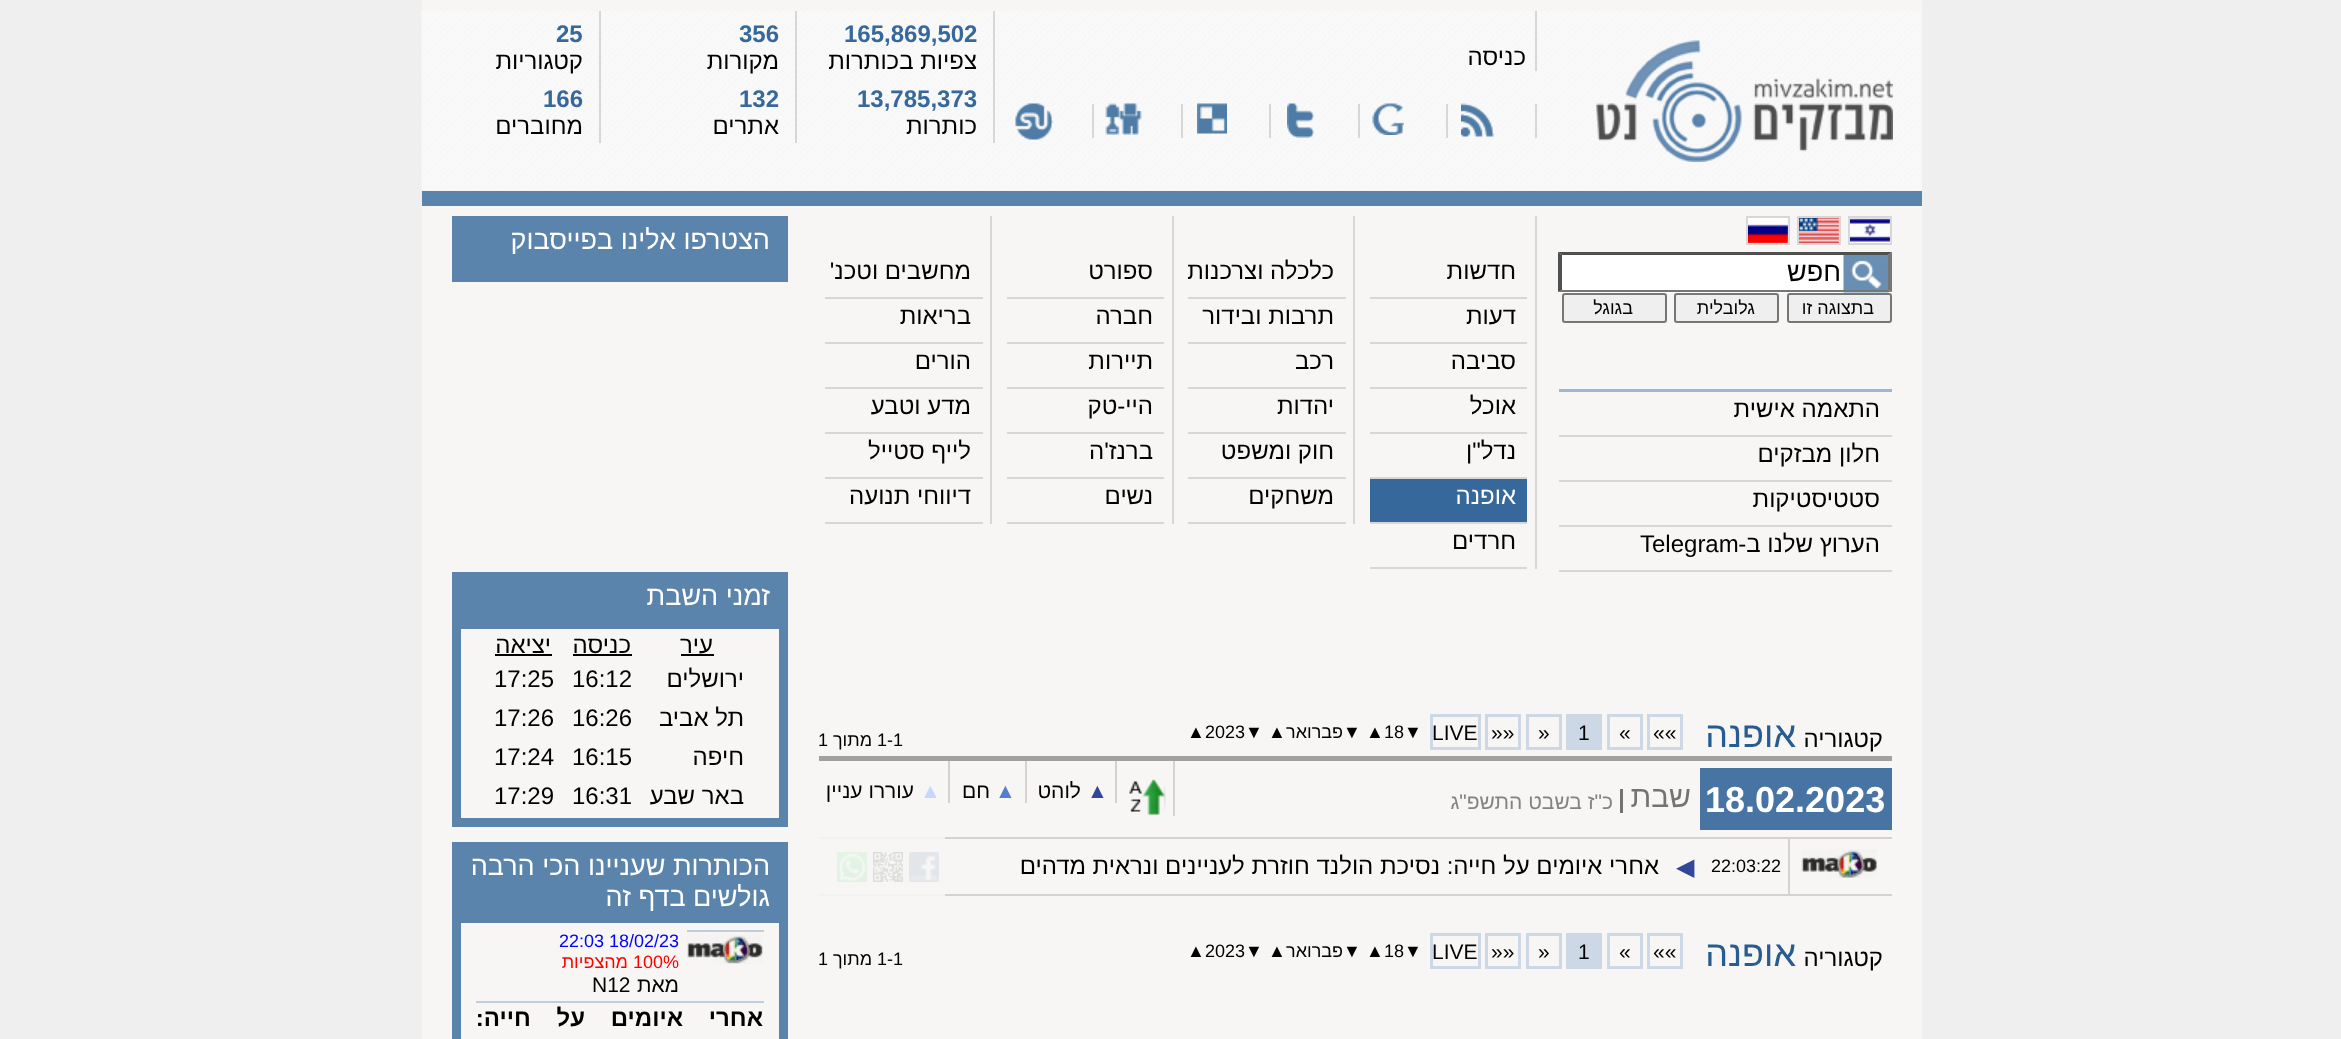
<svg xmlns="http://www.w3.org/2000/svg" width="2341" height="1039" viewBox="0 0 2341 1039">
  <rect width="100%" height="100%" fill="rgb(239,239,239)"/>
  <rect x="422" y="0" width="1500" height="1039" fill="rgb(247,246,244)"/>
  <image x="421" y="11" width="1500" height="179" href="pic1.png"/>
  <image x="1596" y="40" width="297" height="122" href="pic2.png"/>
  <rect x="1535" y="11" width="2" height="60" fill="rgb(215,215,215)"/>
  <text x="1526" y="65" font-family="Liberation Sans" font-size="24" direction="rtl" fill="rgb(0,0,0)">כניסה</text>
  <rect x="1535" y="104" width="2" height="34" fill="rgb(215,215,215)"/>
  <image x="1461" y="103" width="33" height="34" href="pic3.png"/>
  <rect x="1446" y="104" width="2" height="34" fill="rgb(215,215,215)"/>
  <image x="1372" y="103" width="32" height="32" href="pic4.png"/>
  <rect x="1358" y="104" width="2" height="34" fill="rgb(215,215,215)"/>
  <image x="1287" y="103" width="27" height="35" href="pic5.png"/>
  <rect x="1269" y="104" width="2" height="34" fill="rgb(215,215,215)"/>
  <image x="1197" y="103" width="30" height="31" href="pic6.png"/>
  <rect x="1181" y="104" width="2" height="34" fill="rgb(215,215,215)"/>
  <image x="1105" y="103" width="37" height="32" href="pic7.png"/>
  <rect x="1092" y="104" width="2" height="34" fill="rgb(215,215,215)"/>
  <image x="1015" y="103" width="38" height="37" href="pic8.png"/>
  <rect x="993" y="11" width="2" height="132" fill="rgb(215,215,215)"/>
  <text x="844" y="42" font-family="Liberation Sans" font-size="24" font-weight="bold" fill="rgb(54,104,155)">165,869,502</text>
  <text x="977" y="69" font-family="Liberation Sans" font-size="24" direction="rtl" fill="rgb(0,0,0)">צפיות בכותרות</text>
  <text x="857" y="107" font-family="Liberation Sans" font-size="24" font-weight="bold" fill="rgb(54,104,155)">13,785,373</text>
  <text x="977" y="134" font-family="Liberation Sans" font-size="24" direction="rtl" fill="rgb(0,0,0)">כותרות</text>
  <rect x="795" y="11" width="2" height="132" fill="rgb(215,215,215)"/>
  <text x="739" y="42" font-family="Liberation Sans" font-size="24" font-weight="bold" fill="rgb(54,104,155)">356</text>
  <text x="779" y="69" font-family="Liberation Sans" font-size="24" direction="rtl" fill="rgb(0,0,0)">מקורות</text>
  <text x="739" y="107" font-family="Liberation Sans" font-size="24" font-weight="bold" fill="rgb(54,104,155)">132</text>
  <text x="779" y="134" font-family="Liberation Sans" font-size="24" direction="rtl" fill="rgb(0,0,0)">אתרים</text>
  <rect x="599" y="11" width="2" height="132" fill="rgb(215,215,215)"/>
  <text x="556" y="42" font-family="Liberation Sans" font-size="24" font-weight="bold" fill="rgb(54,104,155)">25</text>
  <text x="583" y="69" font-family="Liberation Sans" font-size="24" direction="rtl" fill="rgb(0,0,0)">קטגוריות</text>
  <text x="543" y="107" font-family="Liberation Sans" font-size="24" font-weight="bold" fill="rgb(54,104,155)">166</text>
  <text x="583" y="134" font-family="Liberation Sans" font-size="24" direction="rtl" fill="rgb(0,0,0)">מחוברים</text>
  <rect x="422" y="191" width="1500" height="15" fill="rgb(91,132,172)"/>
  <rect x="456.5" y="220.5" width="327" height="57" fill="none" stroke="rgb(91,132,172)" stroke-width="9"/>
  <rect x="461" y="225" width="318" height="48" fill="rgb(91,132,172)"/>
  <text x="770" y="249" font-family="Liberation Sans" font-size="27" direction="rtl" fill="rgb(255,255,255)">הצטרפו אלינו בפייסבוק</text>
  <image x="1850" y="218" width="40" height="25" href="pic9.png"/>
  <rect x="1849" y="217" width="42" height="27" fill="none" stroke="rgb(215,215,215)" stroke-width="2"/>
  <image x="1799" y="218" width="40" height="25" href="pic10.png"/>
  <rect x="1798" y="217" width="42" height="27" fill="none" stroke="rgb(215,215,215)" stroke-width="2"/>
  <image x="1748" y="218" width="40" height="25" href="pic11.png"/>
  <rect x="1747" y="217" width="42" height="27" fill="none" stroke="rgb(215,215,215)" stroke-width="2"/>
  <rect x="1559" y="252" width="333" height="41" fill="rgb(255,255,255)"/>
  <image x="1843" y="254" width="46" height="39" href="pic12.png"/>
  <path d="M1558 252H1892L1888 255H1562Z" fill="rgb(79,79,79)"/>
  <path d="M1892 252V292L1888 290V255Z" fill="rgb(118,118,118)"/>
  <path d="M1892 292H1558L1562 290H1888Z" fill="rgb(118,118,118)"/>
  <path d="M1558 292V252L1562 255V290Z" fill="rgb(79,79,79)"/>
  <text x="1841" y="281" font-family="Liberation Sans" font-size="27" direction="rtl" fill="rgb(0,0,0)">חפש</text>
  <rect x="1788" y="294" width="103" height="28" rx="2" fill="rgb(239,239,239)" stroke="rgb(118,118,118)" stroke-width="2"/>
  <text x="1874" y="314" font-family="Liberation Sans" font-size="18" direction="rtl" fill="rgb(0,0,0)">בתצוגה זו</text>
  <rect x="1675" y="294" width="103" height="28" rx="2" fill="rgb(239,239,239)" stroke="rgb(118,118,118)" stroke-width="2"/>
  <text x="1755" y="314" font-family="Liberation Sans" font-size="18" direction="rtl" fill="rgb(0,0,0)">גלובלית</text>
  <rect x="1563" y="294" width="103" height="28" rx="2" fill="rgb(239,239,239)" stroke="rgb(118,118,118)" stroke-width="2"/>
  <text x="1633" y="314" font-family="Liberation Sans" font-size="18" direction="rtl" fill="rgb(0,0,0)">בגוגל</text>
  <rect x="1559" y="389" width="333" height="3" fill="rgb(159,182,207)"/>
  <rect x="1559" y="435" width="333" height="2" fill="rgb(215,215,215)"/>
  <text x="1880" y="417" font-family="Liberation Sans" font-size="24" direction="rtl" fill="rgb(0,0,0)">התאמה אישית</text>
  <rect x="1559" y="480" width="333" height="2" fill="rgb(215,215,215)"/>
  <text x="1880" y="462" font-family="Liberation Sans" font-size="24" direction="rtl" fill="rgb(0,0,0)">חלון מבזקים</text>
  <rect x="1559" y="525" width="333" height="2" fill="rgb(215,215,215)"/>
  <text x="1880" y="507" font-family="Liberation Sans" font-size="24" direction="rtl" fill="rgb(0,0,0)">סטטיסטיקות</text>
  <rect x="1559" y="570" width="333" height="2" fill="rgb(215,215,215)"/>
  <text x="1880" y="552" font-family="Liberation Sans" font-size="24" direction="rtl" fill="rgb(0,0,0)">הערוץ שלנו ב-</text>
  <text x="1640" y="552" font-family="Liberation Sans" font-size="24" fill="rgb(0,0,0)">Telegram</text>
  <rect x="1535" y="216" width="2" height="353" fill="rgb(215,215,215)"/>
  <rect x="1370" y="297" width="157" height="2" fill="rgb(215,215,215)"/>
  <text x="1516" y="279" font-family="Liberation Sans" font-size="24" direction="rtl" fill="rgb(0,0,0)">חדשות</text>
  <rect x="1370" y="342" width="157" height="2" fill="rgb(215,215,215)"/>
  <text x="1516" y="324" font-family="Liberation Sans" font-size="24" direction="rtl" fill="rgb(0,0,0)">דעות</text>
  <rect x="1370" y="387" width="157" height="2" fill="rgb(215,215,215)"/>
  <text x="1516" y="369" font-family="Liberation Sans" font-size="24" direction="rtl" fill="rgb(0,0,0)">סביבה</text>
  <rect x="1370" y="432" width="157" height="2" fill="rgb(215,215,215)"/>
  <text x="1516" y="414" font-family="Liberation Sans" font-size="24" direction="rtl" fill="rgb(0,0,0)">אוכל</text>
  <rect x="1370" y="477" width="157" height="2" fill="rgb(215,215,215)"/>
  <text x="1516" y="459" font-family="Liberation Sans" font-size="24" direction="rtl" fill="rgb(0,0,0)">נדל"ן</text>
  <rect x="1370" y="479" width="157" height="43" fill="rgb(54,104,155)"/>
  <rect x="1370" y="522" width="157" height="2" fill="rgb(215,215,215)"/>
  <text x="1516" y="504" font-family="Liberation Sans" font-size="24" direction="rtl" fill="rgb(255,255,255)">אופנה</text>
  <rect x="1370" y="567" width="157" height="2" fill="rgb(215,215,215)"/>
  <text x="1516" y="549" font-family="Liberation Sans" font-size="24" direction="rtl" fill="rgb(0,0,0)">חרדים</text>
  <rect x="1353" y="216" width="2" height="308" fill="rgb(215,215,215)"/>
  <rect x="1188" y="297" width="158" height="2" fill="rgb(215,215,215)"/>
  <text x="1334" y="279" font-family="Liberation Sans" font-size="24" direction="rtl" fill="rgb(0,0,0)">כלכלה וצרכנות</text>
  <rect x="1188" y="342" width="158" height="2" fill="rgb(215,215,215)"/>
  <text x="1334" y="324" font-family="Liberation Sans" font-size="24" direction="rtl" fill="rgb(0,0,0)">תרבות ובידור</text>
  <rect x="1188" y="387" width="158" height="2" fill="rgb(215,215,215)"/>
  <text x="1334" y="369" font-family="Liberation Sans" font-size="24" direction="rtl" fill="rgb(0,0,0)">רכב</text>
  <rect x="1188" y="432" width="158" height="2" fill="rgb(215,215,215)"/>
  <text x="1334" y="414" font-family="Liberation Sans" font-size="24" direction="rtl" fill="rgb(0,0,0)">יהדות</text>
  <rect x="1188" y="477" width="158" height="2" fill="rgb(215,215,215)"/>
  <text x="1334" y="459" font-family="Liberation Sans" font-size="24" direction="rtl" fill="rgb(0,0,0)">חוק ומשפט</text>
  <rect x="1188" y="522" width="158" height="2" fill="rgb(215,215,215)"/>
  <text x="1334" y="504" font-family="Liberation Sans" font-size="24" direction="rtl" fill="rgb(0,0,0)">משחקים</text>
  <rect x="1172" y="216" width="2" height="308" fill="rgb(215,215,215)"/>
  <rect x="1007" y="297" width="157" height="2" fill="rgb(215,215,215)"/>
  <text x="1153" y="279" font-family="Liberation Sans" font-size="24" direction="rtl" fill="rgb(0,0,0)">ספורט</text>
  <rect x="1007" y="342" width="157" height="2" fill="rgb(215,215,215)"/>
  <text x="1153" y="324" font-family="Liberation Sans" font-size="24" direction="rtl" fill="rgb(0,0,0)">חברה</text>
  <rect x="1007" y="387" width="157" height="2" fill="rgb(215,215,215)"/>
  <text x="1153" y="369" font-family="Liberation Sans" font-size="24" direction="rtl" fill="rgb(0,0,0)">תיירות</text>
  <rect x="1007" y="432" width="157" height="2" fill="rgb(215,215,215)"/>
  <text x="1153" y="414" font-family="Liberation Sans" font-size="24" direction="rtl" fill="rgb(0,0,0)">היי-טק</text>
  <rect x="1007" y="477" width="157" height="2" fill="rgb(215,215,215)"/>
  <text x="1153" y="459" font-family="Liberation Sans" font-size="24" direction="rtl" fill="rgb(0,0,0)">ברנז'ה</text>
  <rect x="1007" y="522" width="157" height="2" fill="rgb(215,215,215)"/>
  <text x="1153" y="504" font-family="Liberation Sans" font-size="24" direction="rtl" fill="rgb(0,0,0)">נשים</text>
  <rect x="990" y="216" width="2" height="308" fill="rgb(215,215,215)"/>
  <rect x="825" y="297" width="158" height="2" fill="rgb(215,215,215)"/>
  <text x="971" y="279" font-family="Liberation Sans" font-size="24" direction="rtl" fill="rgb(0,0,0)">מחשבים וטכנ'</text>
  <rect x="825" y="342" width="158" height="2" fill="rgb(215,215,215)"/>
  <text x="971" y="324" font-family="Liberation Sans" font-size="24" direction="rtl" fill="rgb(0,0,0)">בריאות</text>
  <rect x="825" y="387" width="158" height="2" fill="rgb(215,215,215)"/>
  <text x="971" y="369" font-family="Liberation Sans" font-size="24" direction="rtl" fill="rgb(0,0,0)">הורים</text>
  <rect x="825" y="432" width="158" height="2" fill="rgb(215,215,215)"/>
  <text x="971" y="414" font-family="Liberation Sans" font-size="24" direction="rtl" fill="rgb(0,0,0)">מדע וטבע</text>
  <rect x="825" y="477" width="158" height="2" fill="rgb(215,215,215)"/>
  <text x="971" y="459" font-family="Liberation Sans" font-size="24" direction="rtl" fill="rgb(0,0,0)">לייף סטייל</text>
  <rect x="825" y="522" width="158" height="2" fill="rgb(215,215,215)"/>
  <text x="971" y="504" font-family="Liberation Sans" font-size="24" direction="rtl" fill="rgb(0,0,0)">דיווחי תנועה</text>
  <rect x="456.5" y="576.5" width="327" height="246" fill="none" stroke="rgb(91,132,172)" stroke-width="9"/>
  <rect x="461" y="581" width="318" height="48" fill="rgb(91,132,172)"/>
  <text x="770" y="605" font-family="Liberation Sans" font-size="27" direction="rtl" fill="rgb(255,255,255)">זמני השבת</text>
  <text x="713" y="653" font-family="Liberation Sans" font-size="24" direction="rtl" fill="rgb(0,0,0)">עיר</text>
  <rect x="681" y="654" width="33" height="2" fill="rgb(0,0,0)"/>
  <text x="631" y="653" font-family="Liberation Sans" font-size="24" direction="rtl" fill="rgb(0,0,0)">כניסה</text>
  <rect x="573" y="654" width="59" height="2" fill="rgb(0,0,0)"/>
  <text x="551" y="653" font-family="Liberation Sans" font-size="24" direction="rtl" fill="rgb(0,0,0)">יציאה</text>
  <rect x="495" y="654" width="57" height="2" fill="rgb(0,0,0)"/>
  <text x="744" y="687" font-family="Liberation Sans" font-size="24" direction="rtl" fill="rgb(0,0,0)">ירושלים</text>
  <g font-family="Liberation Sans" font-size="24" fill="rgb(0,0,0)">
    <text x="572" y="687">16:12</text>
    <text x="494" y="687">17:25</text>
  </g>
  <text x="744" y="726" font-family="Liberation Sans" font-size="24" direction="rtl" fill="rgb(0,0,0)">תל אביב</text>
  <g font-family="Liberation Sans" font-size="24" fill="rgb(0,0,0)">
    <text x="572" y="726">16:26</text>
    <text x="494" y="726">17:26</text>
  </g>
  <text x="744" y="765" font-family="Liberation Sans" font-size="24" direction="rtl" fill="rgb(0,0,0)">חיפה</text>
  <g font-family="Liberation Sans" font-size="24" fill="rgb(0,0,0)">
    <text x="572" y="765">16:15</text>
    <text x="494" y="765">17:24</text>
  </g>
  <text x="744" y="804" font-family="Liberation Sans" font-size="24" direction="rtl" fill="rgb(0,0,0)">באר שבע</text>
  <g font-family="Liberation Sans" font-size="24" fill="rgb(0,0,0)">
    <text x="572" y="804">16:31</text>
    <text x="494" y="804">17:29</text>
  </g>
  <text x="1883" y="747" font-family="Liberation Sans" font-size="24" direction="rtl" fill="rgb(0,0,0)">קטגוריה</text>
  <text x="1796" y="747" font-family="Liberation Sans" font-size="36" direction="rtl" fill="rgb(38,92,146)">אופנה</text>
  <rect x="1648.5" y="715.5" width="33" height="33" fill="none" stroke="rgb(204,216,229)" stroke-width="3"/>
  <text x="1653" y="740" font-family="Liberation Sans" font-size="21" fill="rgb(0,0,0)">««</text>
  <rect x="1608.5" y="715.5" width="33" height="33" fill="none" stroke="rgb(204,216,229)" stroke-width="3"/>
  <text x="1619" y="740" font-family="Liberation Sans" font-size="21" fill="rgb(0,0,0)">«</text>
  <rect x="1566" y="714" width="36" height="36" fill="rgb(204,216,229)"/>
  <text x="1578" y="740" font-family="Liberation Sans" font-size="21" fill="rgb(0,0,0)">1</text>
  <rect x="1527.5" y="715.5" width="33" height="33" fill="none" stroke="rgb(204,216,229)" stroke-width="3"/>
  <text x="1538" y="740" font-family="Liberation Sans" font-size="21" fill="rgb(0,0,0)">»</text>
  <rect x="1486.5" y="715.5" width="33" height="33" fill="none" stroke="rgb(204,216,229)" stroke-width="3"/>
  <text x="1491" y="740" font-family="Liberation Sans" font-size="21" fill="rgb(0,0,0)">»»</text>
  <rect x="1431.5" y="715.5" width="48" height="33" fill="none" stroke="rgb(204,216,229)" stroke-width="3"/>
  <text x="1432" y="740" font-family="Liberation Sans" font-size="21" fill="rgb(0,0,0)">LIVE</text>
  <g font-family="Liberation Sans" font-size="18" fill="rgb(0,0,0)">
    <text x="1404" y="738">▼</text>
    <text x="1384" y="738">18</text>
    <text x="1366" y="738">▲</text>
    <text x="1343" y="738">▼</text>
  </g>
  <text x="1343" y="738" font-family="Liberation Sans" font-size="18" direction="rtl" fill="rgb(0,0,0)">פברואר</text>
  <g font-family="Liberation Sans" font-size="18" fill="rgb(0,0,0)">
    <text x="1268" y="738">▲</text>
    <text x="1245" y="738">▼</text>
    <text x="1205" y="738">2023</text>
    <text x="1187" y="738">▲</text>
    <text x="877" y="746">1-1</text>
  </g>
  <text x="872" y="746" font-family="Liberation Sans" font-size="18" direction="rtl" fill="rgb(0,0,0)">מתוך</text>
  <text x="818" y="746" font-family="Liberation Sans" font-size="18" fill="rgb(0,0,0)">1</text>
  <rect x="819" y="756" width="1073" height="5" fill="rgb(161,161,161)"/>
  <rect x="1700" y="768" width="192" height="62" fill="rgb(71,116,162)"/>
  <text x="1705" y="812" font-family="Liberation Sans" font-size="36" font-weight="bold" fill="rgb(255,255,255)">18.02.2023</text>
  <text x="1691" y="807" font-family="Liberation Sans" font-size="30" direction="rtl" fill="rgb(115,115,115)">שבת</text>
  <rect x="1620" y="789" width="3" height="24" fill="rgb(115,115,115)"/>
  <text x="1613" y="809" font-family="Liberation Sans" font-size="21" direction="rtl" fill="rgb(131,131,131)">כ"ז בשבט התשפ"ג</text>
  <rect x="1173" y="761" width="2" height="55" fill="rgb(210,210,210)"/>
  <image x="1129" y="779" width="37" height="36" href="pic13.png"/>
  <rect x="1115" y="761" width="2" height="42" fill="rgb(210,210,210)"/>
  <text x="1087" y="798" font-family="Liberation Sans" font-size="21" fill="rgb(51,71,153)">▲︎</text>
  <text x="1081" y="798" font-family="Liberation Sans" font-size="21" direction="rtl" fill="rgb(0,0,0)">לוהט</text>
  <rect x="1025" y="761" width="2" height="42" fill="rgb(210,210,210)"/>
  <text x="995" y="798" font-family="Liberation Sans" font-size="21" fill="rgb(82,125,211)">▲︎</text>
  <text x="990" y="798" font-family="Liberation Sans" font-size="21" direction="rtl" fill="rgb(0,0,0)">חם</text>
  <rect x="948" y="761" width="2" height="42" fill="rgb(210,210,210)"/>
  <text x="920" y="798" font-family="Liberation Sans" font-size="21" fill="rgb(196,215,254)">▲︎</text>
  <text x="914" y="798" font-family="Liberation Sans" font-size="21" direction="rtl" fill="rgb(0,0,0)">עוררו עניין</text>
  <rect x="818" y="837" width="129" height="2" fill="rgb(243,242,241)"/>
  <rect x="945" y="837" width="947" height="2" fill="rgb(210,210,210)"/>
  <rect x="818" y="894" width="129" height="2" fill="rgb(243,242,241)"/>
  <rect x="945" y="894" width="947" height="2" fill="rgb(210,210,210)"/>
  <rect x="1788" y="837" width="2" height="59" fill="rgb(210,210,210)"/>
  <image x="1801" y="849" width="76" height="29" href="pic14.png"/>
  <text x="1711" y="872" font-family="Liberation Sans" font-size="18" fill="rgb(0,0,0)">22:03:22</text>
  <text x="1676" y="875" font-family="DejaVu Sans" font-size="24" fill="rgb(51,71,153)">◀︎</text>
  <text x="1659" y="874" font-family="Liberation Sans" font-size="24" direction="rtl" fill="rgb(0,0,0)">אחרי איומים על חייה: נסיכת הולנד חוזרת לעניינים ונראית מדהים</text>
  <image x="909" y="852" width="30" height="30" href="pic15.png"/>
  <image x="873" y="852" width="30" height="30" href="pic16.png"/>
  <image x="837" y="852" width="30" height="30" href="pic17.png"/>
  <text x="1883" y="966" font-family="Liberation Sans" font-size="24" direction="rtl" fill="rgb(0,0,0)">קטגוריה</text>
  <text x="1796" y="966" font-family="Liberation Sans" font-size="36" direction="rtl" fill="rgb(38,92,146)">אופנה</text>
  <rect x="1648.5" y="934.5" width="33" height="33" fill="none" stroke="rgb(204,216,229)" stroke-width="3"/>
  <text x="1653" y="959" font-family="Liberation Sans" font-size="21" fill="rgb(0,0,0)">««</text>
  <rect x="1608.5" y="934.5" width="33" height="33" fill="none" stroke="rgb(204,216,229)" stroke-width="3"/>
  <text x="1619" y="959" font-family="Liberation Sans" font-size="21" fill="rgb(0,0,0)">«</text>
  <rect x="1566" y="933" width="36" height="36" fill="rgb(204,216,229)"/>
  <text x="1578" y="959" font-family="Liberation Sans" font-size="21" fill="rgb(0,0,0)">1</text>
  <rect x="1527.5" y="934.5" width="33" height="33" fill="none" stroke="rgb(204,216,229)" stroke-width="3"/>
  <text x="1538" y="959" font-family="Liberation Sans" font-size="21" fill="rgb(0,0,0)">»</text>
  <rect x="1486.5" y="934.5" width="33" height="33" fill="none" stroke="rgb(204,216,229)" stroke-width="3"/>
  <text x="1491" y="959" font-family="Liberation Sans" font-size="21" fill="rgb(0,0,0)">»»</text>
  <rect x="1431.5" y="934.5" width="48" height="33" fill="none" stroke="rgb(204,216,229)" stroke-width="3"/>
  <text x="1432" y="959" font-family="Liberation Sans" font-size="21" fill="rgb(0,0,0)">LIVE</text>
  <g font-family="Liberation Sans" font-size="18" fill="rgb(0,0,0)">
    <text x="1404" y="957">▼</text>
    <text x="1384" y="957">18</text>
    <text x="1366" y="957">▲</text>
    <text x="1343" y="957">▼</text>
  </g>
  <text x="1343" y="957" font-family="Liberation Sans" font-size="18" direction="rtl" fill="rgb(0,0,0)">פברואר</text>
  <g font-family="Liberation Sans" font-size="18" fill="rgb(0,0,0)">
    <text x="1268" y="957">▲</text>
    <text x="1245" y="957">▼</text>
    <text x="1205" y="957">2023</text>
    <text x="1187" y="957">▲</text>
    <text x="877" y="965">1-1</text>
  </g>
  <text x="872" y="965" font-family="Liberation Sans" font-size="18" direction="rtl" fill="rgb(0,0,0)">מתוך</text>
  <text x="818" y="965" font-family="Liberation Sans" font-size="18" fill="rgb(0,0,0)">1</text>
  <rect x="456.5" y="846.5" width="327" height="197" fill="none" stroke="rgb(91,132,172)" stroke-width="9"/>
  <rect x="461" y="851" width="318" height="72" fill="rgb(91,132,172)"/>
  <g font-family="Liberation Sans" font-size="27" direction="rtl" fill="rgb(255,255,255)">
    <text>
      <tspan x="770" y="875">הכותרות שעניינו הכי הרבה</tspan>
      <tspan x="770" y="906">גולשים בדף זה</tspan>
    </text>
  </g>
  <rect x="687" y="930" width="77" height="2" fill="rgb(188,206,224)"/>
  <image x="687" y="935" width="76" height="29" href="pic18.png"/>
  <text x="559" y="947" font-family="Liberation Sans" font-size="18" fill="rgb(0,0,255)">22:03 18/02/23</text>
  <text x="633" y="968" font-family="Liberation Sans" font-size="18" fill="rgb(255,0,0)">100%</text>
  <text x="628" y="968" font-family="Liberation Sans" font-size="18" direction="rtl" fill="rgb(255,0,0)">מהצפיות</text>
  <text x="679" y="992" font-family="Liberation Sans" font-size="21" direction="rtl" fill="rgb(0,0,0)">מאת</text>
  <text x="592" y="992" font-family="Liberation Sans" font-size="21" fill="rgb(0,0,0)">N12</text>
  <rect x="476" y="1001" width="288" height="2" fill="rgb(188,206,224)"/>
  <text x="763" y="1026" word-spacing="19" font-family="Liberation Sans" font-size="24" font-weight="bold" direction="rtl" fill="rgb(0,0,0)">אחרי איומים על חייה:</text>
</svg>
